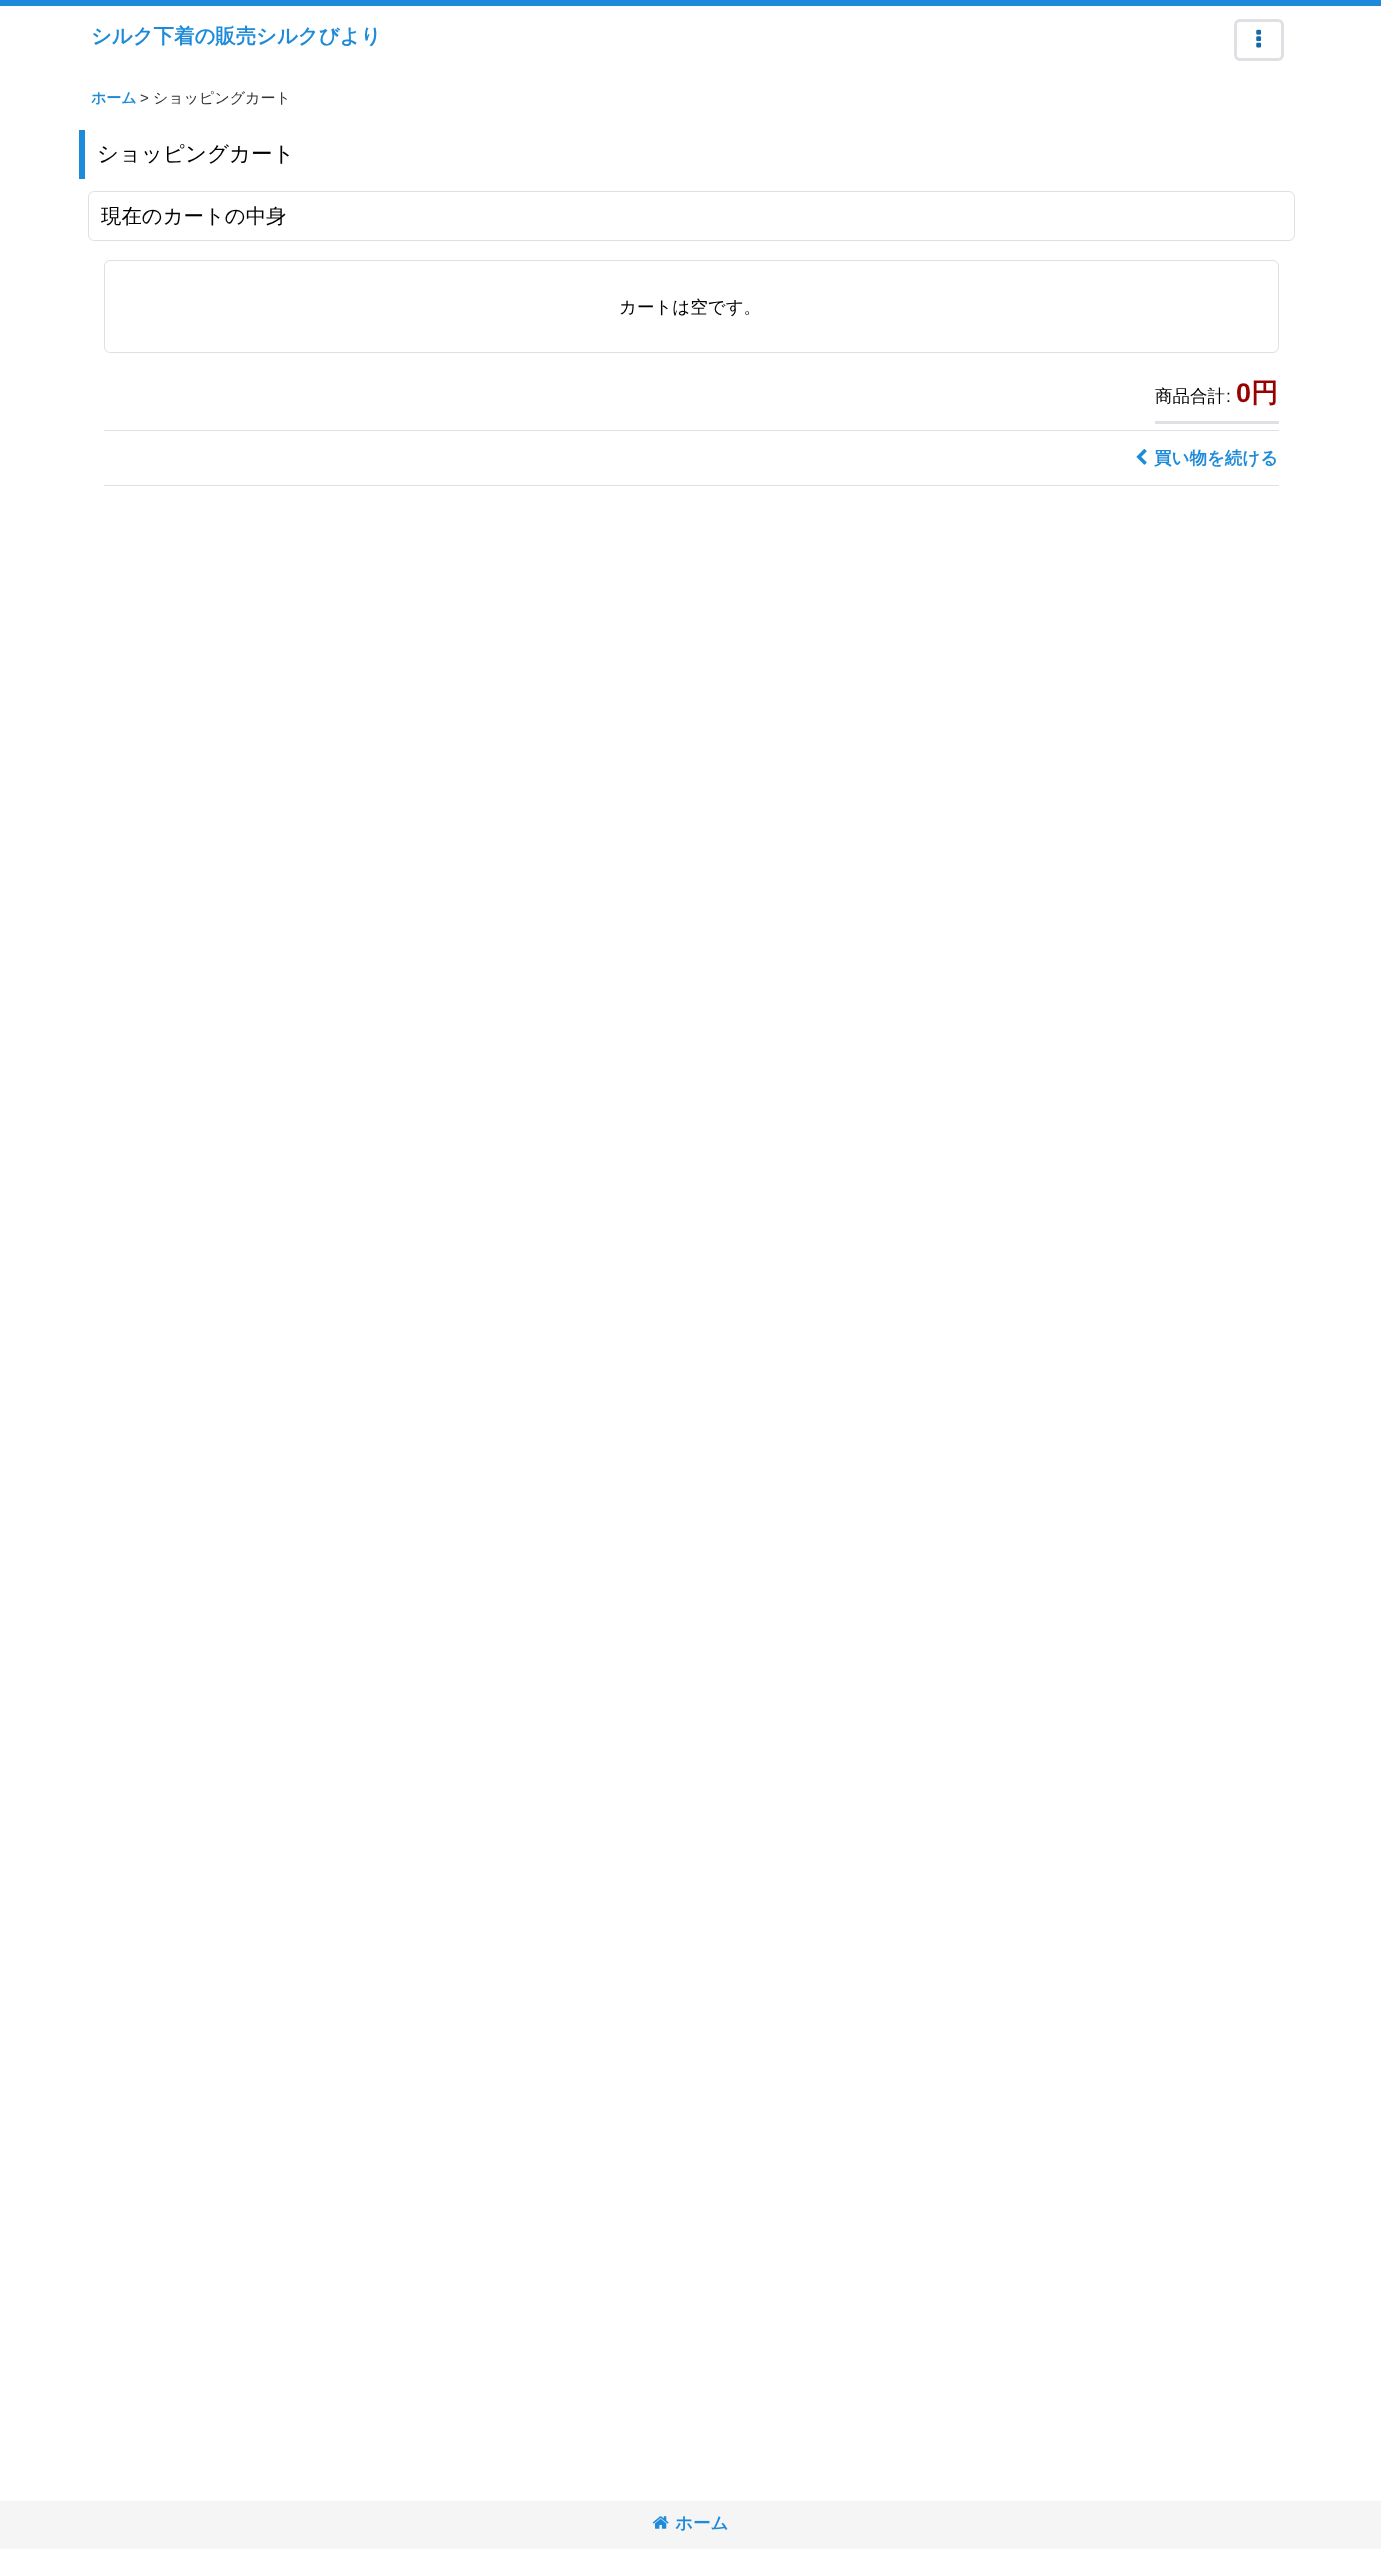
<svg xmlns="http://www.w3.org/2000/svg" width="1381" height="2549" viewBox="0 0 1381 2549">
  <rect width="100%" height="100%" fill="rgb(255,255,255)"/>
  <rect x="0" y="0" width="1381" height="6" fill="rgb(29,139,217)"/>
  <text x="91" y="43" font-family="WenQuanYi Zen Hei" font-size="20.4" font-weight="bold" fill="rgb(29,139,217)">シルク下着の販売シルクびより</text>
  <rect x="1235.5" y="20.5" width="47" height="39" rx="4.5" fill="none" stroke="rgb(224,223,227)" stroke-width="3"/>
  <image x="1256" y="29" width="6" height="19" href="pic1.png"/>
  <text x="91" y="103" font-family="WenQuanYi Zen Hei" font-size="15" font-weight="bold" fill="rgb(29,139,217)">ホーム</text>
  <text x="140" y="103" font-family="Liberation Sans" font-size="15" fill="rgb(51,51,51)">&gt;</text>
  <text x="153" y="103" font-family="WenQuanYi Zen Hei" font-size="15" font-weight="500" fill="rgb(51,51,51)">ショッピングカート</text>
  <rect x="79" y="130" width="6" height="49" fill="rgb(29,139,217)"/>
  <text x="97" y="161" font-family="WenQuanYi Zen Hei" font-size="21.5" font-weight="500" fill="rgb(0,0,0)">ショッピングカート</text>
  <rect x="88.5" y="191.5" width="1206" height="49" rx="5.5" fill="none" stroke="rgb(224,223,227)"/>
  <text x="101" y="223" font-family="WenQuanYi Zen Hei" font-size="20.4" font-weight="500" fill="rgb(0,0,0)">現在のカートの中身</text>
  <rect x="104.5" y="260.5" width="1174" height="92" rx="5.5" fill="none" stroke="rgb(224,223,227)"/>
  <text x="619" y="313" font-family="WenQuanYi Zen Hei" font-size="17.5" font-weight="500" fill="rgb(0,0,0)">カートは空です。</text>
  <rect x="1155" y="421" width="124" height="3" fill="rgb(224,223,227)"/>
  <text x="1155" y="402" font-family="WenQuanYi Zen Hei" font-size="17.5" font-weight="500" fill="rgb(0,0,0)">商品合計</text>
  <text x="1226" y="402" font-family="Liberation Sans" font-size="17.5" fill="rgb(0,0,0)">:</text>
  <text x="1236" y="402" font-family="Liberation Sans" font-size="27" font-weight="bold" fill="rgb(153,0,0)">0</text>
  <text x="1251" y="402" font-family="WenQuanYi Zen Hei" font-size="27" font-weight="bold" fill="rgb(153,0,0)">円</text>
  <rect x="104" y="430" width="1175" height="1" fill="rgb(224,223,227)"/>
  <rect x="104" y="485" width="1175" height="1" fill="rgb(224,223,227)"/>
  <image x="1136" y="449" width="11" height="16" href="pic2.png"/>
  <text x="1154" y="464" font-family="WenQuanYi Zen Hei" font-size="17.5" font-weight="bold" fill="rgb(29,139,217)">買い物を続ける</text>
  <rect x="0" y="2501" width="1381" height="48" fill="rgb(245,245,245)"/>
  <image x="652" y="2516" width="17" height="13" href="pic3.png"/>
  <text x="675" y="2529" font-family="WenQuanYi Zen Hei" font-size="17.5" font-weight="bold" fill="rgb(29,139,217)">ホーム</text>
</svg>
